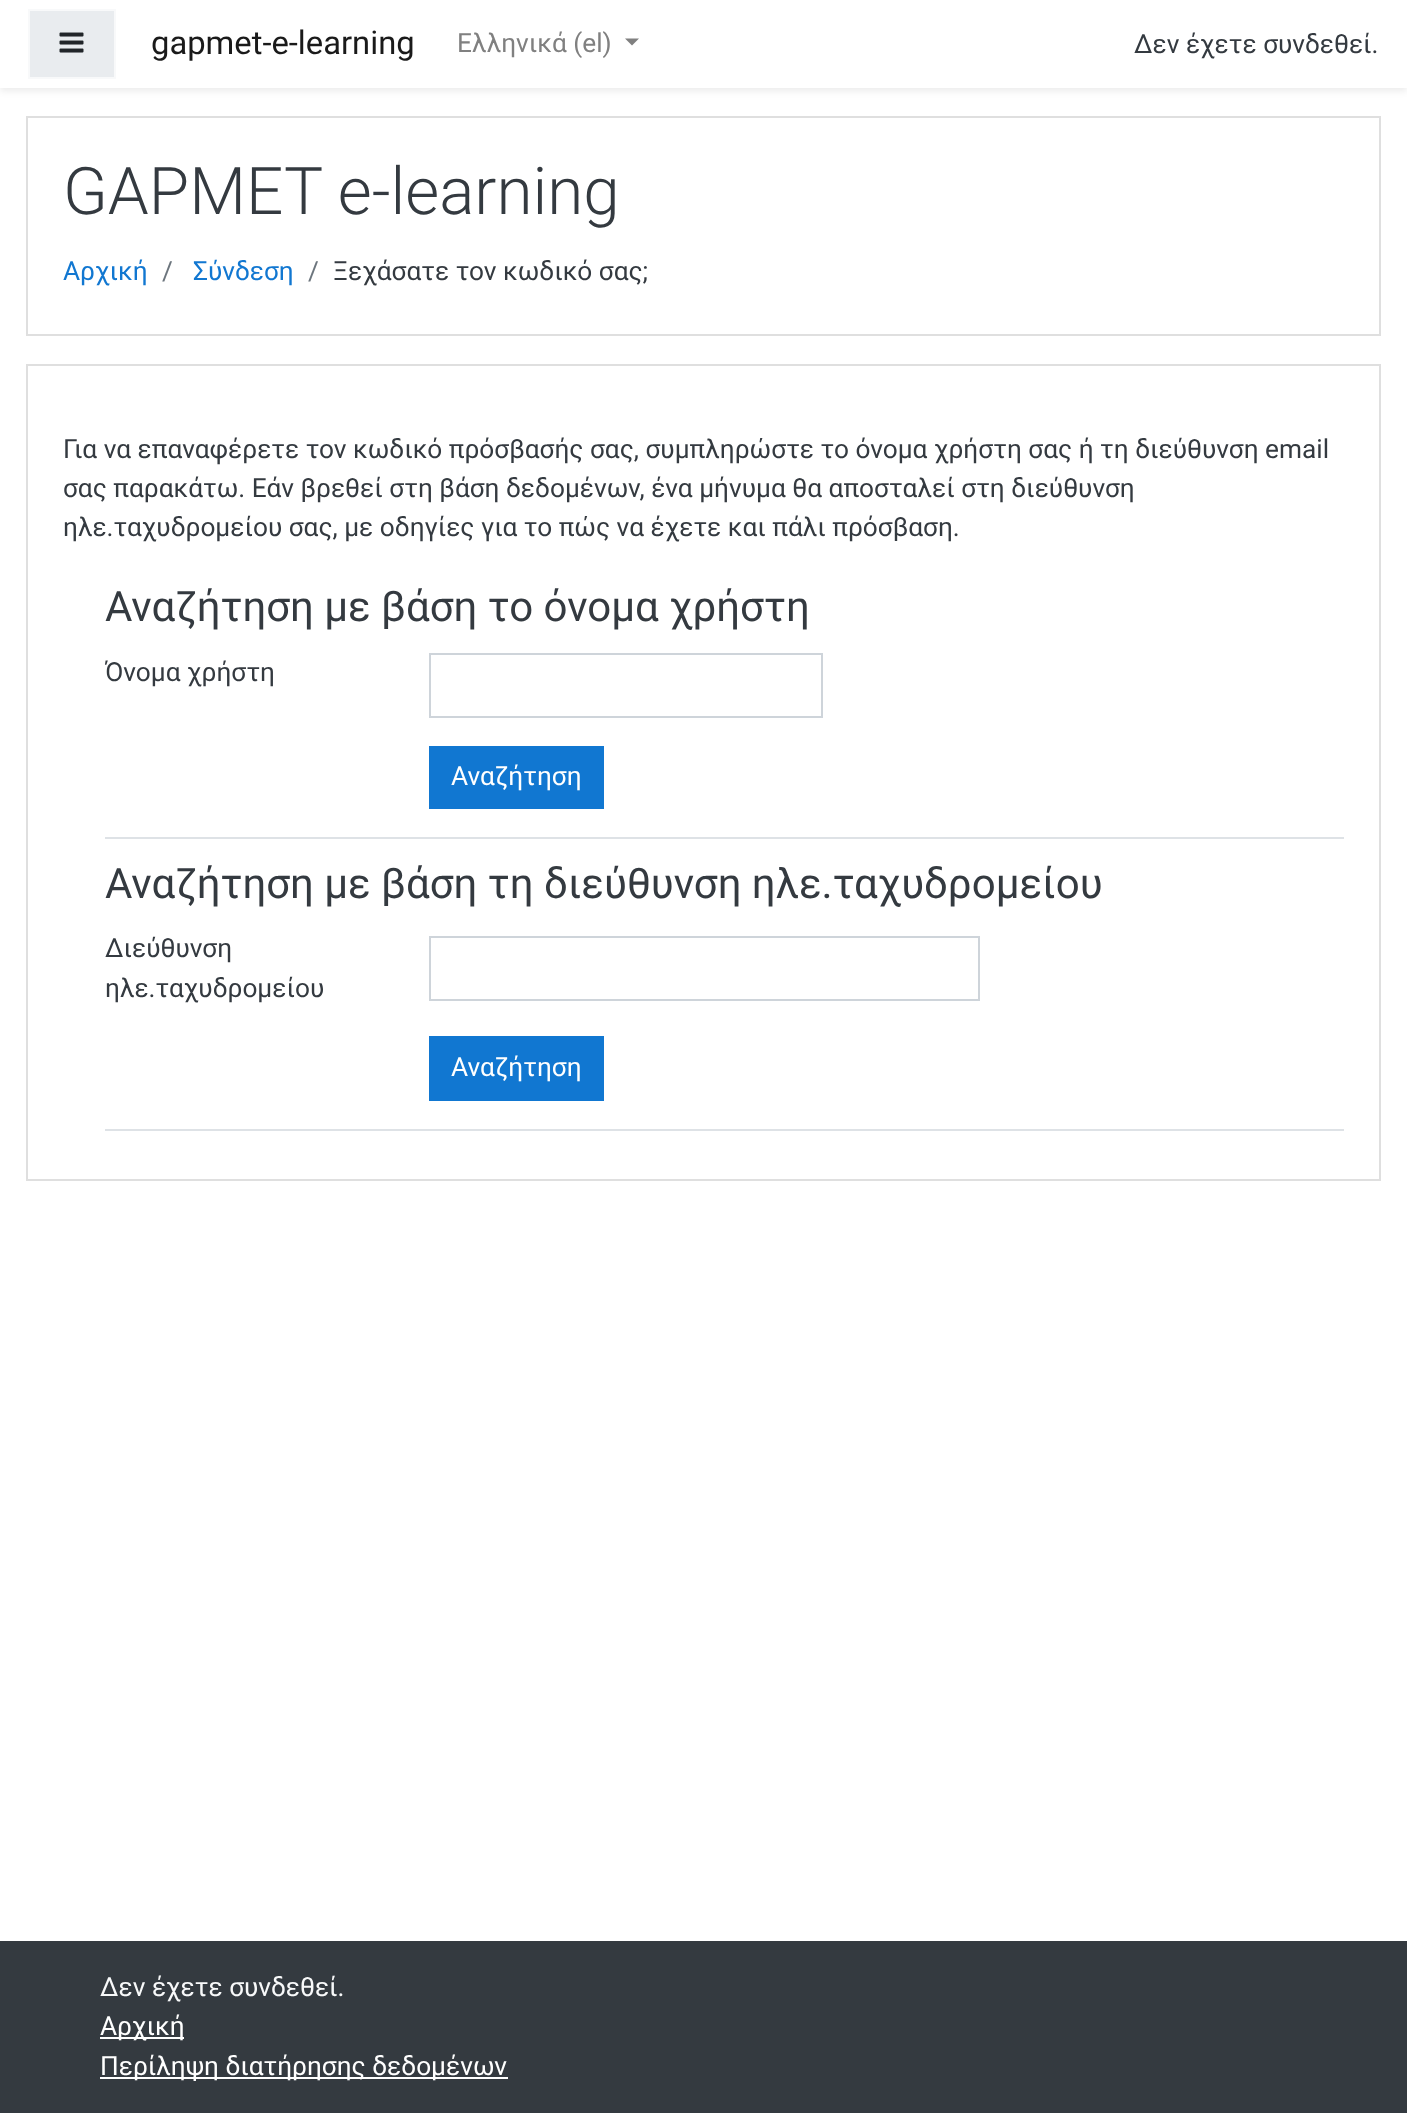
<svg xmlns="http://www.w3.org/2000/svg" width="1407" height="2113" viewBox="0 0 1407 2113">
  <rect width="100%" height="100%" fill="rgb(255,255,255)"/>
  <rect x="0" y="4" width="1407" height="87" fill="rgba(0,0,0,0.08)" filter="blur(3.5px)"/>
  <rect x="0" y="0" width="1407" height="88" fill="rgb(255,255,255)"/>
  <rect x="29" y="10" width="86" height="68" fill="rgb(233,236,239)" stroke="rgb(248,249,250)" stroke-width="2"/>
  <image x="59" y="32" width="25" height="21" href="pic1.png"/>
  <text x="151" y="54" font-family="Roboto" font-size="32.75" fill="rgb(26,26,26)">gapmet-e-learning</text>
  <text x="457" y="52" font-family="Roboto" font-size="26.25" fill="rgb(128,128,128)">Ελληνικά (el)</text>
  <path d="M625 38.5H639L632 45.5Z" fill="rgb(128,128,128)"/>
  <text x="1134" y="53" font-family="Roboto" font-size="26.25" fill="rgb(52,58,64)">Δεν έχετε συνδεθεί.</text>
  <rect x="27" y="117" width="1353" height="218" fill="none" stroke="rgb(223,223,223)" stroke-width="2"/>
  <text x="63" y="214" font-family="Roboto" font-size="65.6" font-weight="300" fill="rgb(52,58,64)">GAPMET e-learning</text>
  <text x="63" y="280" font-family="Roboto" font-size="26.25" fill="rgb(17,119,209)">Αρχική</text>
  <text x="162" y="280" font-family="Roboto" font-size="26.25" fill="rgb(108,117,125)">/</text>
  <text x="193" y="280" font-family="Roboto" font-size="26.25" fill="rgb(17,119,209)">Σύνδεση</text>
  <text x="308" y="280" font-family="Roboto" font-size="26.25" fill="rgb(108,117,125)">/</text>
  <text x="333" y="280" font-family="Roboto" font-size="26.25" fill="rgb(52,58,64)">Ξεχάσατε τον κωδικό σας;</text>
  <rect x="27" y="365" width="1353" height="815" fill="none" stroke="rgb(223,223,223)" stroke-width="2"/>
  <g font-family="Roboto" font-size="26.25" fill="rgb(52,58,64)">
    <text>
      <tspan x="63" y="458">Για να επαναφέρετε τον κωδικό πρόσβασής σας, συμπληρώστε το όνομα χρήστη σας ή τη διεύθυνση email</tspan>
      <tspan x="63" y="497">σας παρακάτω. Εάν βρεθεί στη βάση δεδομένων, ένα μήνυμα θα αποσταλεί στη διεύθυνση</tspan>
      <tspan x="63" y="536">ηλε.ταχυδρομείου σας, με οδηγίες για το πώς να έχετε και πάλι πρόσβαση.</tspan>
    </text>
  </g>
  <rect x="105" y="837" width="1239" height="2" fill="rgb(222,226,230)"/>
  <text x="105" y="621" font-family="Roboto" font-size="42" fill="rgb(52,58,64)">Αναζήτηση με βάση το όνομα χρήστη</text>
  <text x="105" y="681" font-family="Roboto" font-size="26.25" fill="rgb(52,58,64)">Όνομα χρήστη</text>
  <rect x="430" y="654" width="392" height="63" fill="none" stroke="rgb(206,212,218)" stroke-width="2"/>
  <rect x="429" y="746" width="175" height="63" fill="rgb(17,119,209)"/>
  <text x="451" y="785" font-family="Roboto" font-size="26.25" fill="rgb(255,255,255)">Αναζήτηση</text>
  <rect x="105" y="1129" width="1239" height="2" fill="rgb(222,226,230)"/>
  <text x="105" y="898" font-family="Roboto" font-size="42" fill="rgb(52,58,64)">Αναζήτηση με βάση τη διεύθυνση ηλε.ταχυδρομείου</text>
  <g font-family="Roboto" font-size="26.25" fill="rgb(52,58,64)">
    <text>
      <tspan x="105" y="957">Διεύθυνση</tspan>
      <tspan x="105" y="997">ηλε.ταχυδρομείου</tspan>
    </text>
  </g>
  <rect x="430" y="937" width="549" height="63" fill="none" stroke="rgb(206,212,218)" stroke-width="2"/>
  <rect x="429" y="1036" width="175" height="65" fill="rgb(17,119,209)"/>
  <text x="451" y="1076" font-family="Roboto" font-size="26.25" fill="rgb(255,255,255)">Αναζήτηση</text>
  <rect x="0" y="1941" width="1407" height="172" fill="rgb(52,58,64)"/>
  <text x="100" y="1996" font-family="Roboto" font-size="26.25" fill="rgb(248,249,250)">Δεν έχετε συνδεθεί.</text>
  <rect x="100" y="2037" width="84" height="2" fill="rgb(255,255,255)"/>
  <text x="100" y="2035" font-family="Roboto" font-size="26.25" fill="rgb(255,255,255)">Αρχική</text>
  <rect x="100" y="2077" width="408" height="2" fill="rgb(255,255,255)"/>
  <text x="100" y="2075" font-family="Roboto" font-size="26.25" fill="rgb(255,255,255)">Περίληψη διατήρησης δεδομένων</text>
</svg>
